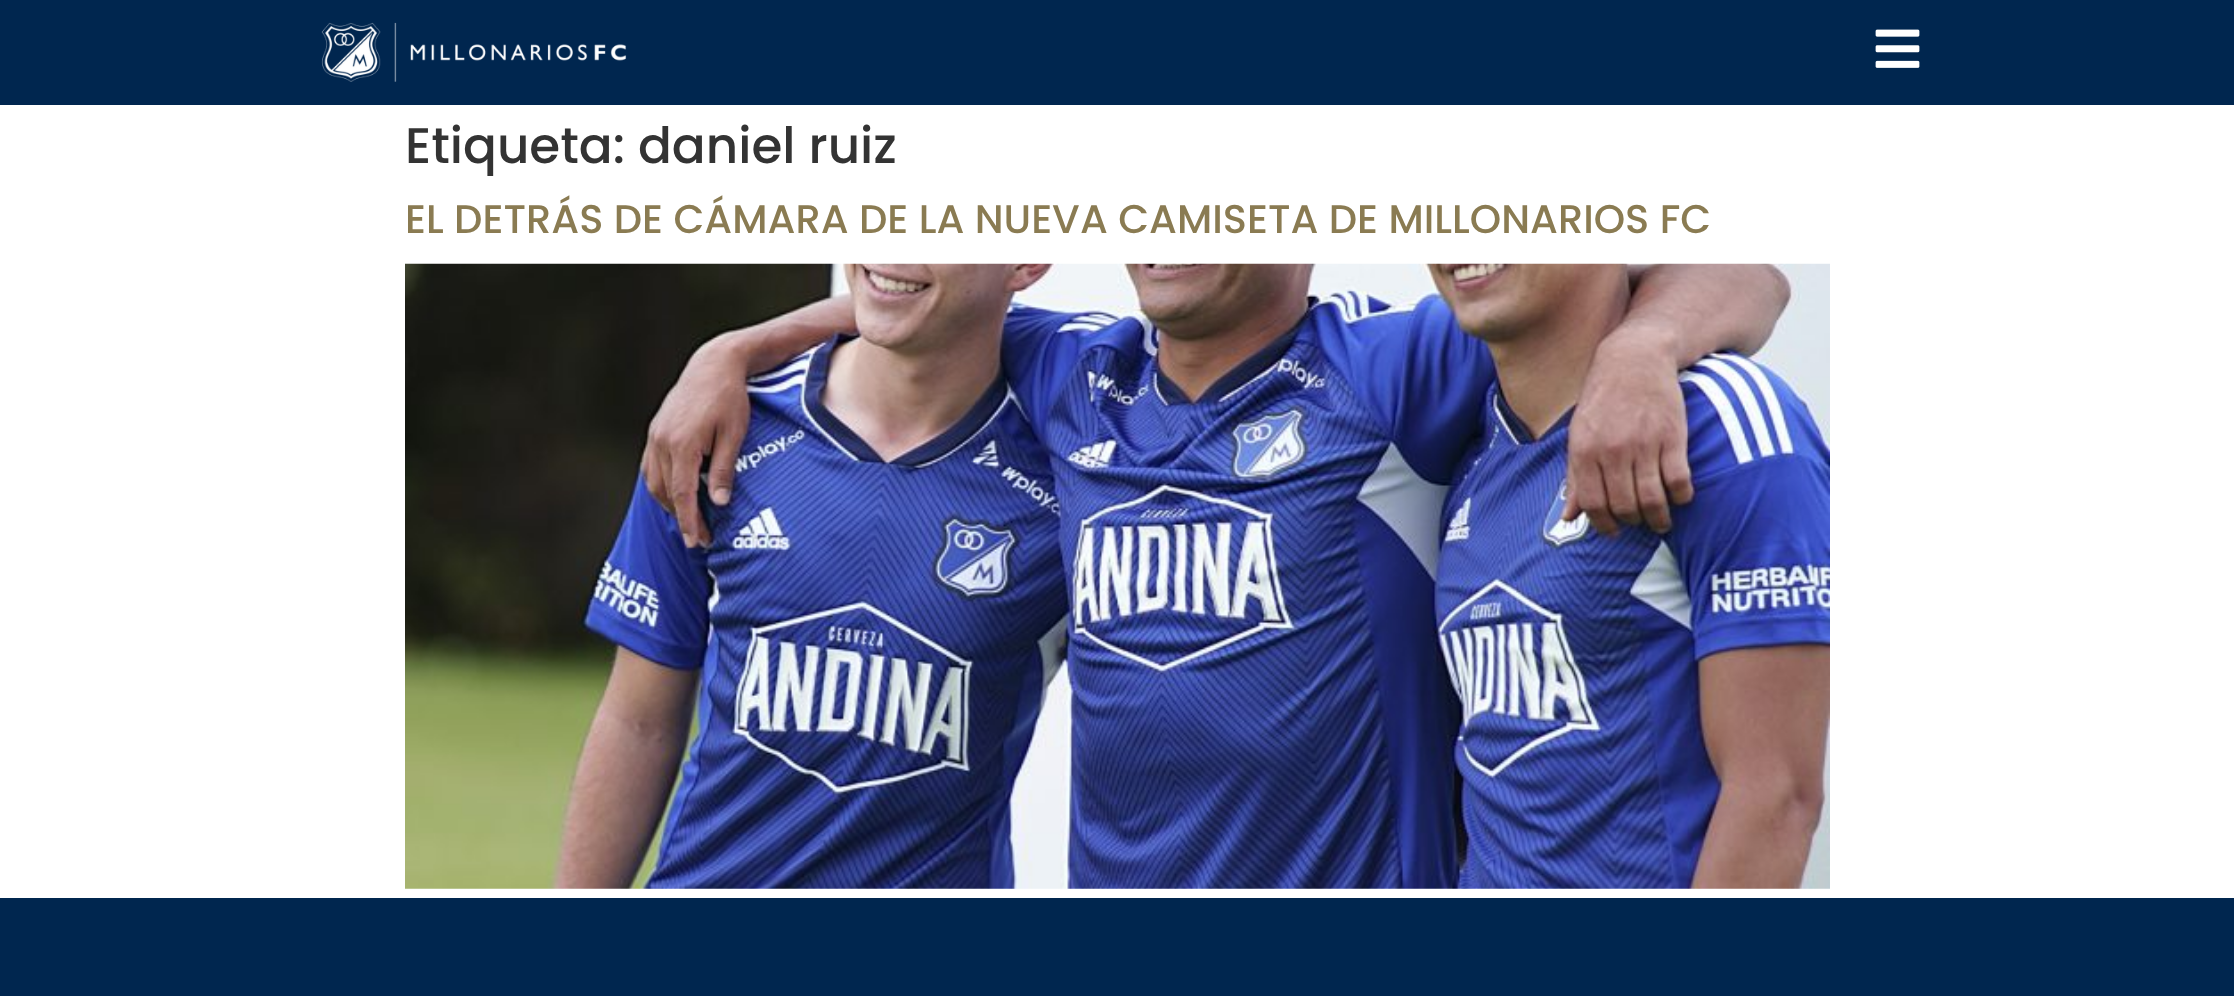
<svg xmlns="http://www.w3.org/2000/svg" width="2234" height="996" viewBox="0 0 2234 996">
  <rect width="100%" height="100%" fill="rgb(255,255,255)"/>
  <rect x="0" y="0" width="2234" height="105" fill="rgb(0,38,79)"/>
  <image x="321" y="22" width="306" height="60" href="pic1.png"/>
  <image x="1875" y="29" width="45" height="39" href="pic2.png"/>
  <text x="405" y="163" font-family="Poppins" font-size="50" font-weight="500" fill="rgb(51,51,51)">Etiqueta: daniel ruiz</text>
  <text x="405" y="233" font-family="Poppins" font-size="40" font-weight="500" fill="rgb(138,123,82)">EL DETRÁS DE CÁMARA DE LA NUEVA CAMISETA DE MILLONARIOS FC</text>
  <image x="405" y="263" width="1425" height="626" href="pic3.png"/>
  <rect x="0" y="898" width="2234" height="98" fill="rgb(0,38,79)"/>
</svg>
